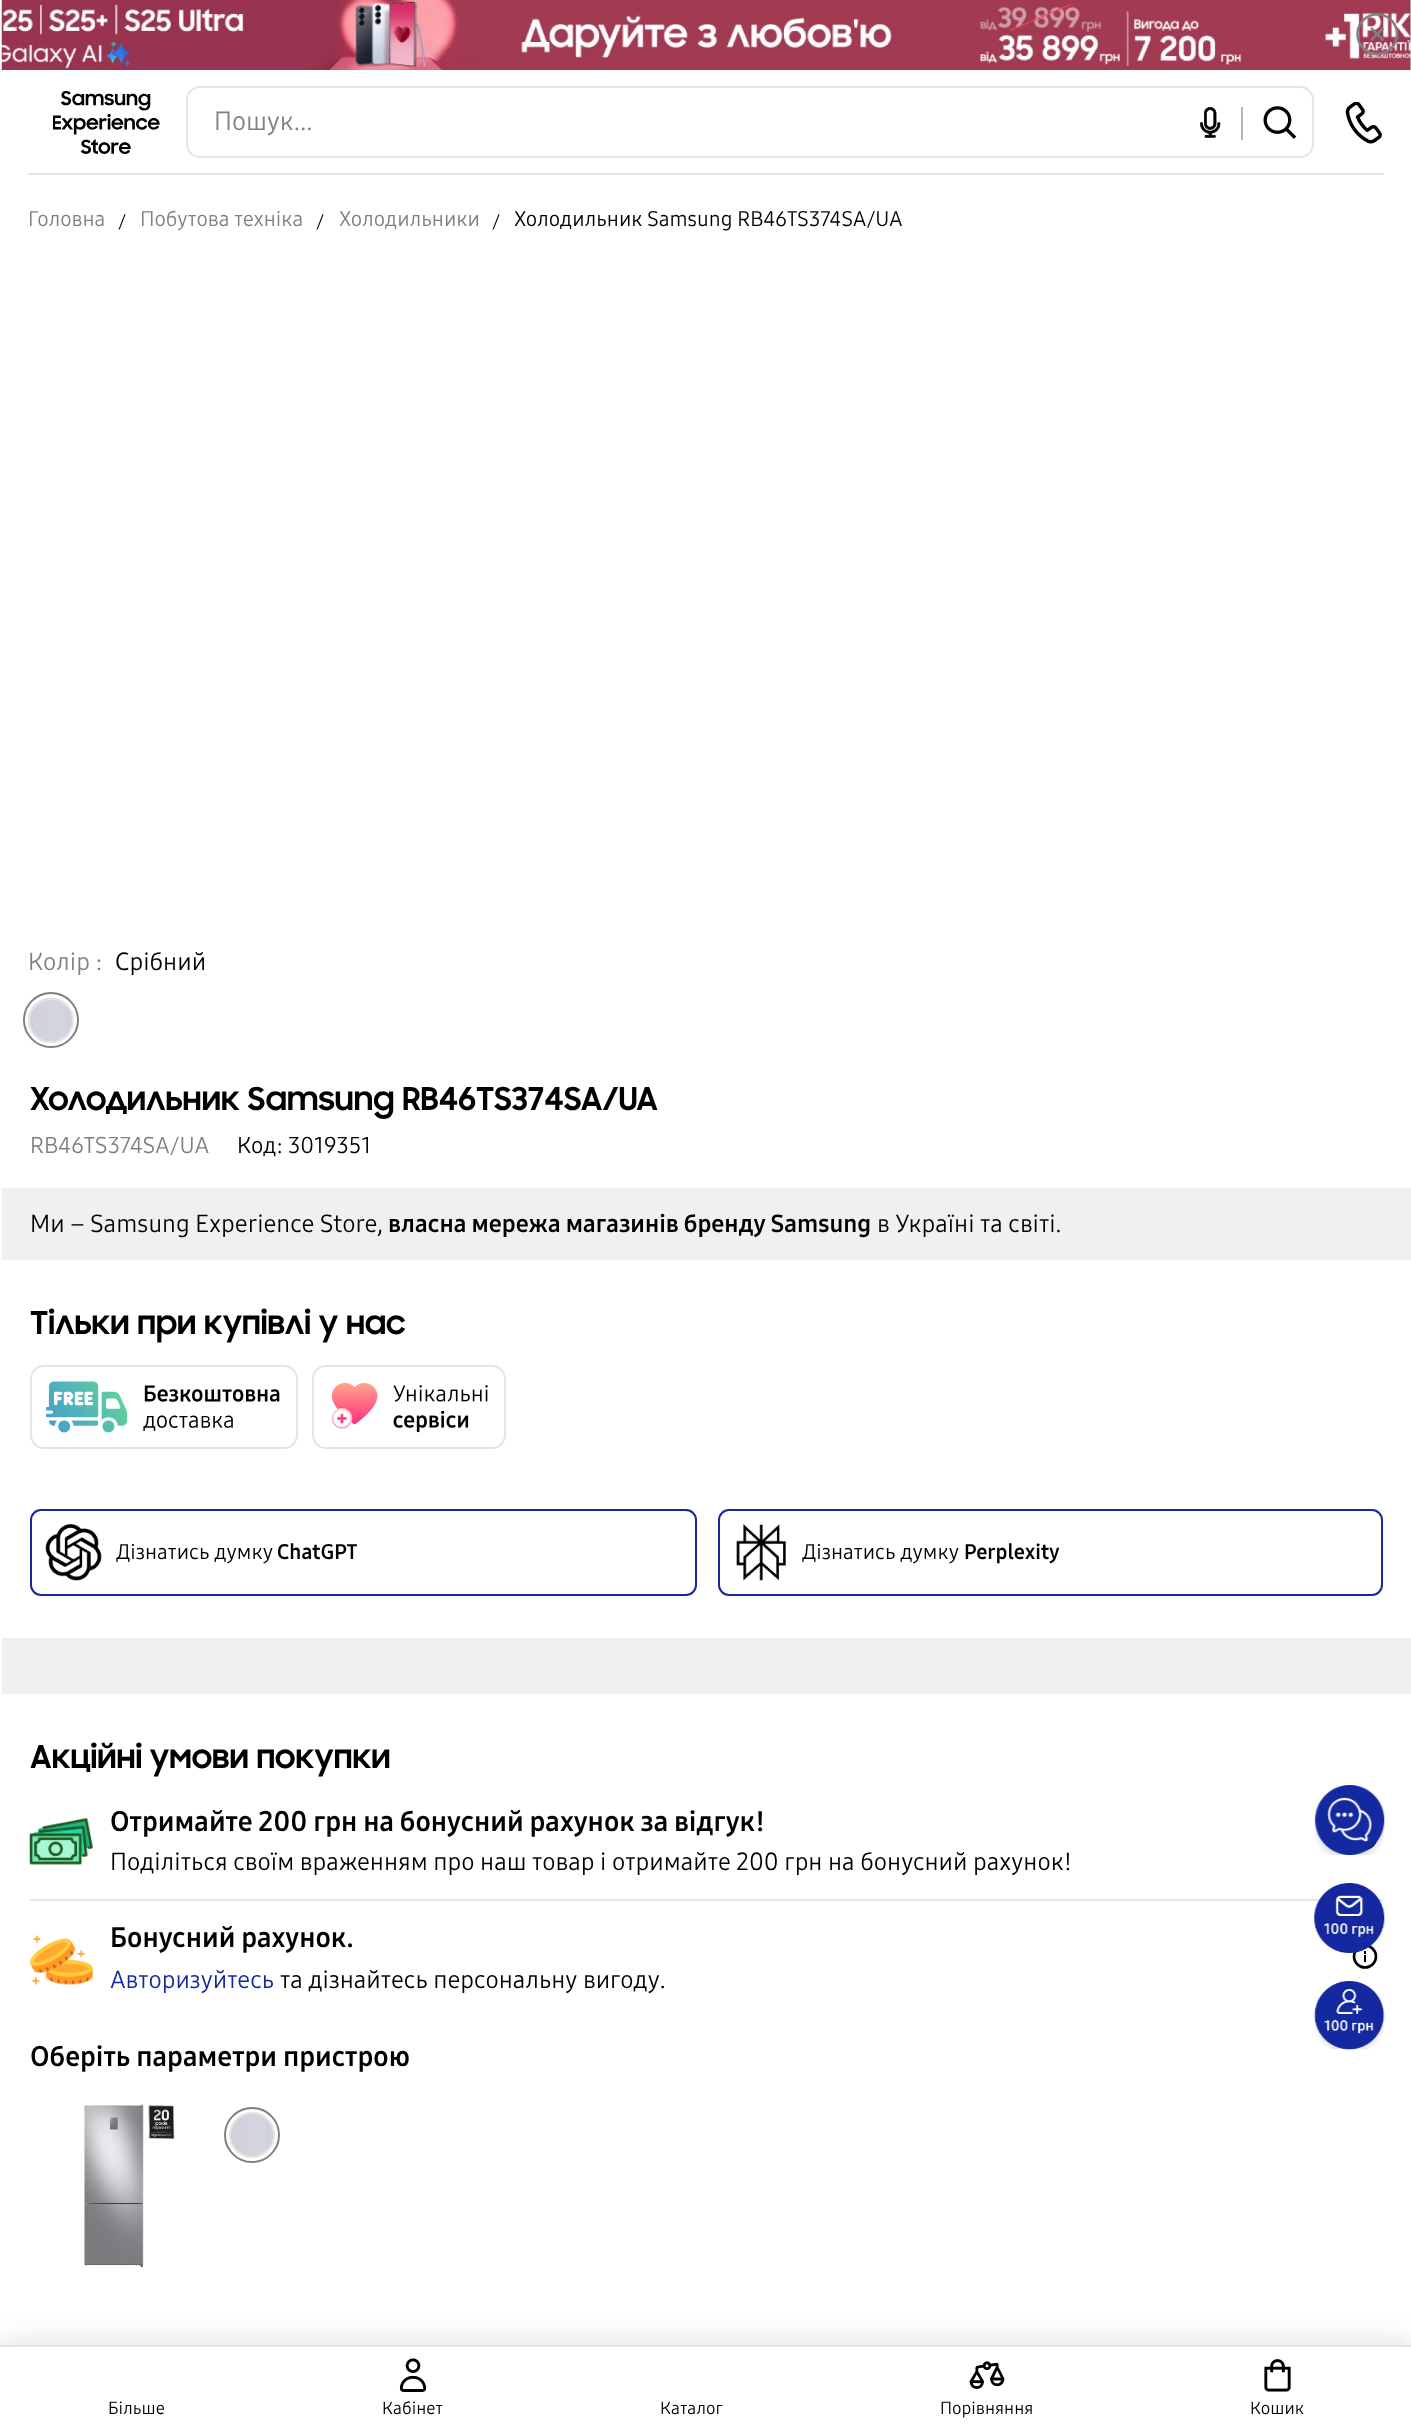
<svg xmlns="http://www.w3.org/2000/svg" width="1411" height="2429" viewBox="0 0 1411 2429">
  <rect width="100%" height="100%" fill="rgb(255,255,255)"/>
  <rect x="1410" y="0" width="1" height="70" fill="rgb(242,240,239)"/>
  <image x="1" y="0" width="1410" height="70" href="pic1.png"/>
  <image x="1356" y="13" width="43" height="43" href="pic2.png"/>
  <rect x="28" y="173" width="1356" height="2" fill="rgb(229,229,229)"/>
  <image x="53" y="91" width="107" height="63" href="pic3.png"/>
  <rect x="187" y="87" width="1126" height="70" rx="13" fill="none" stroke="rgb(229,229,229)" stroke-width="2"/>
  <text x="214" y="130" font-family="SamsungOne" font-size="26" fill="rgb(128,128,128)">Пошук...</text>
  <image x="1200" y="107" width="21" height="31" href="pic4.png"/>
  <rect x="1241" y="107" width="2" height="33" fill="rgb(180,180,180)"/>
  <image x="1263" y="106" width="34" height="33" href="pic5.png"/>
  <image x="1345" y="102" width="37" height="42" href="pic6.png"/>
  <text x="28" y="226" font-family="SamsungOne" font-size="21" fill="rgb(128,128,128)">Головна</text>
  <text x="118" y="228" font-family="SamsungOne" font-size="19" fill="rgb(0,0,0)">/</text>
  <text x="140" y="226" font-family="SamsungOne" font-size="21" fill="rgb(128,128,128)">Побутова техніка</text>
  <text x="316" y="228" font-family="SamsungOne" font-size="19" fill="rgb(0,0,0)">/</text>
  <text x="339" y="226" font-family="SamsungOne" font-size="21" fill="rgb(128,128,128)">Холодильники</text>
  <text x="492" y="228" font-family="SamsungOne" font-size="19" fill="rgb(0,0,0)">/</text>
  <text x="514" y="226" font-family="SamsungOne" font-size="21" fill="rgb(0,0,0)">Холодильник Samsung RB46TS374SA/UA</text>
  <text x="28" y="970" font-family="SamsungOne" font-size="24.5" fill="rgb(128,128,128)">Колір :</text>
  <text x="115" y="970" font-family="SamsungOne" font-size="24.5" fill="rgb(0,0,0)">Срібний</text>
  <image x="28" y="997" width="46" height="46" href="pic7.png"/>
  <rect x="29" y="999" width="44" height="43" rx="21.5" fill="none" stroke="rgb(229,229,229)" stroke-width="2"/>
  <circle cx="51" cy="1020" r="27" fill="none" stroke="rgb(128,128,128)" stroke-width="2"/>
  <text x="30" y="1110" font-family="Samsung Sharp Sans" font-size="31.5" font-weight="bold" fill="rgb(0,0,0)">Холодильник Samsung RB46TS374SA/UA</text>
  <text x="30" y="1153" font-family="SamsungOne" font-size="22.75" fill="rgb(128,128,128)">RB46TS374SA/UA</text>
  <text x="237" y="1153" font-family="SamsungOne" font-size="22.75" fill="rgb(0,0,0)">Код: 3019351</text>
  <rect x="2" y="1188" width="1409" height="72" fill="rgb(242,240,239)"/>
  <text x="30" y="1232" font-family="SamsungOne" font-size="24.5" fill="rgb(0,0,0)">Ми – Samsung Experience Store,</text>
  <text x="388" y="1232" font-family="SamsungOne" font-size="24.5" font-weight="bold" fill="rgb(0,0,0)">власна мережа магазинів бренду Samsung</text>
  <text x="877" y="1232" font-family="SamsungOne" font-size="24.5" fill="rgb(0,0,0)">в Україні та світі.</text>
  <text x="30" y="1334" font-family="Samsung Sharp Sans" font-size="31.5" font-weight="bold" fill="rgb(0,0,0)">Тільки при купівлі у нас</text>
  <rect x="31" y="1366" width="266" height="82" rx="13" fill="none" stroke="rgb(229,229,229)" stroke-width="2"/>
  <image x="46" y="1381" width="234" height="52" href="pic8.png"/>
  <rect x="313" y="1366" width="192" height="82" rx="13" fill="none" stroke="rgb(229,229,229)" stroke-width="2"/>
  <image x="331" y="1382" width="157" height="51" href="pic9.png"/>
  <rect x="31" y="1510" width="665" height="85" rx="10" fill="none" stroke="rgb(20,40,160)" stroke-width="2"/>
  <image x="45" y="1524" width="57" height="57" href="pic10.png"/>
  <text x="116" y="1559" font-family="SamsungOne" font-size="21" fill="rgb(0,0,0)">Дізнатись думку</text>
  <text x="277" y="1559" font-family="SamsungOne" font-size="21" font-weight="bold" fill="rgb(0,0,0)">ChatGPT</text>
  <rect x="719" y="1510" width="663" height="85" rx="10" fill="none" stroke="rgb(20,40,160)" stroke-width="2"/>
  <image x="736" y="1524" width="51" height="57" href="pic11.png"/>
  <text x="802" y="1559" font-family="SamsungOne" font-size="21" fill="rgb(0,0,0)">Дізнатись думку</text>
  <text x="964" y="1559" font-family="SamsungOne" font-size="21" font-weight="bold" fill="rgb(0,0,0)">Perplexity</text>
  <rect x="2" y="1638" width="1409" height="56" fill="rgb(242,240,239)"/>
  <text x="30" y="1768" font-family="Samsung Sharp Sans" font-size="31.5" font-weight="bold" fill="rgb(0,0,0)">Акційні умови покупки</text>
  <image x="29" y="1818" width="64" height="47" href="pic12.png"/>
  <text x="110" y="1831" font-family="SamsungOne" font-size="28" font-weight="bold" fill="rgb(0,0,0)">Отримайте 200 грн на бонусний рахунок за відгук!</text>
  <text x="110" y="1870" font-family="SamsungOne" font-size="24.5" fill="rgb(0,0,0)">Поділіться своїм враженням про наш товар і отримайте 200 грн на бонусний рахунок!</text>
  <circle cx="1365" cy="1837.5" r="11" fill="none" stroke="rgb(0,0,0)" stroke-width="2.6"/>
  <rect x="30" y="1899" width="1353" height="2" fill="rgb(229,229,229)"/>
  <image x="29" y="1935" width="64" height="50" href="pic13.png"/>
  <text x="110" y="1947" font-family="SamsungOne" font-size="28" font-weight="bold" fill="rgb(0,0,0)">Бонусний рахунок.</text>
  <text x="110" y="1988" font-family="SamsungOne" font-size="24.5" fill="rgb(20,40,160)">Авторизуйтесь</text>
  <text x="280" y="1988" font-family="SamsungOne" font-size="24.5" fill="rgb(0,0,0)">та дізнайтесь персональну вигоду.</text>
  <circle cx="1365" cy="1956.5" r="11" fill="none" stroke="rgb(0,0,0)" stroke-width="2.6"/>
  <rect x="1364" y="1955" width="2" height="7" fill="rgb(0,0,0)"/>
  <rect x="1364" y="1951" width="2" height="3" fill="rgb(0,0,0)"/>
  <text x="30" y="2066" font-family="SamsungOne" font-size="28" font-weight="bold" fill="rgb(0,0,0)">Оберіть параметри пристрою</text>
  <image x="84" y="2104" width="91" height="163" href="pic14.png"/>
  <image x="229" y="2112" width="46" height="46" href="pic15.png"/>
  <circle cx="252" cy="2135" r="22" fill="none" stroke="rgb(229,229,229)" stroke-width="2"/>
  <circle cx="252" cy="2135" r="27" fill="none" stroke="rgb(128,128,128)" stroke-width="2"/>
  <image x="1314" y="1785" width="71" height="70" href="pic16.png"/>
  <image x="1314" y="1883" width="71" height="70" href="pic17.png"/>
  <image x="1314" y="1981" width="71" height="69" href="pic18.png"/>
  <rect x="0" y="2342" width="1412" height="84" fill="rgba(0,0,0,0.12)" filter="blur(14px)"/>
  <rect x="0" y="2347" width="1411" height="82" fill="rgb(255,255,255)"/>
  <rect x="0" y="2345" width="1411" height="2" fill="rgb(229,229,229)"/>
  <text x="108" y="2414" font-family="SamsungOne" font-size="17.5" fill="rgb(0,0,0)">Більше</text>
  <image x="399" y="2358" width="28" height="34" href="pic19.png"/>
  <g font-family="SamsungOne" font-size="17.5" fill="rgb(0,0,0)">
    <text x="382" y="2414">Кабінет</text>
    <text x="660" y="2414">Каталог</text>
  </g>
  <image x="969" y="2361" width="36" height="28" href="pic20.png"/>
  <text x="940" y="2414" font-family="SamsungOne" font-size="17.5" fill="rgb(0,0,0)">Порівняння</text>
  <image x="1264" y="2359" width="27" height="33" href="pic21.png"/>
  <text x="1250" y="2414" font-family="SamsungOne" font-size="17.5" fill="rgb(0,0,0)">Кошик</text>
</svg>
